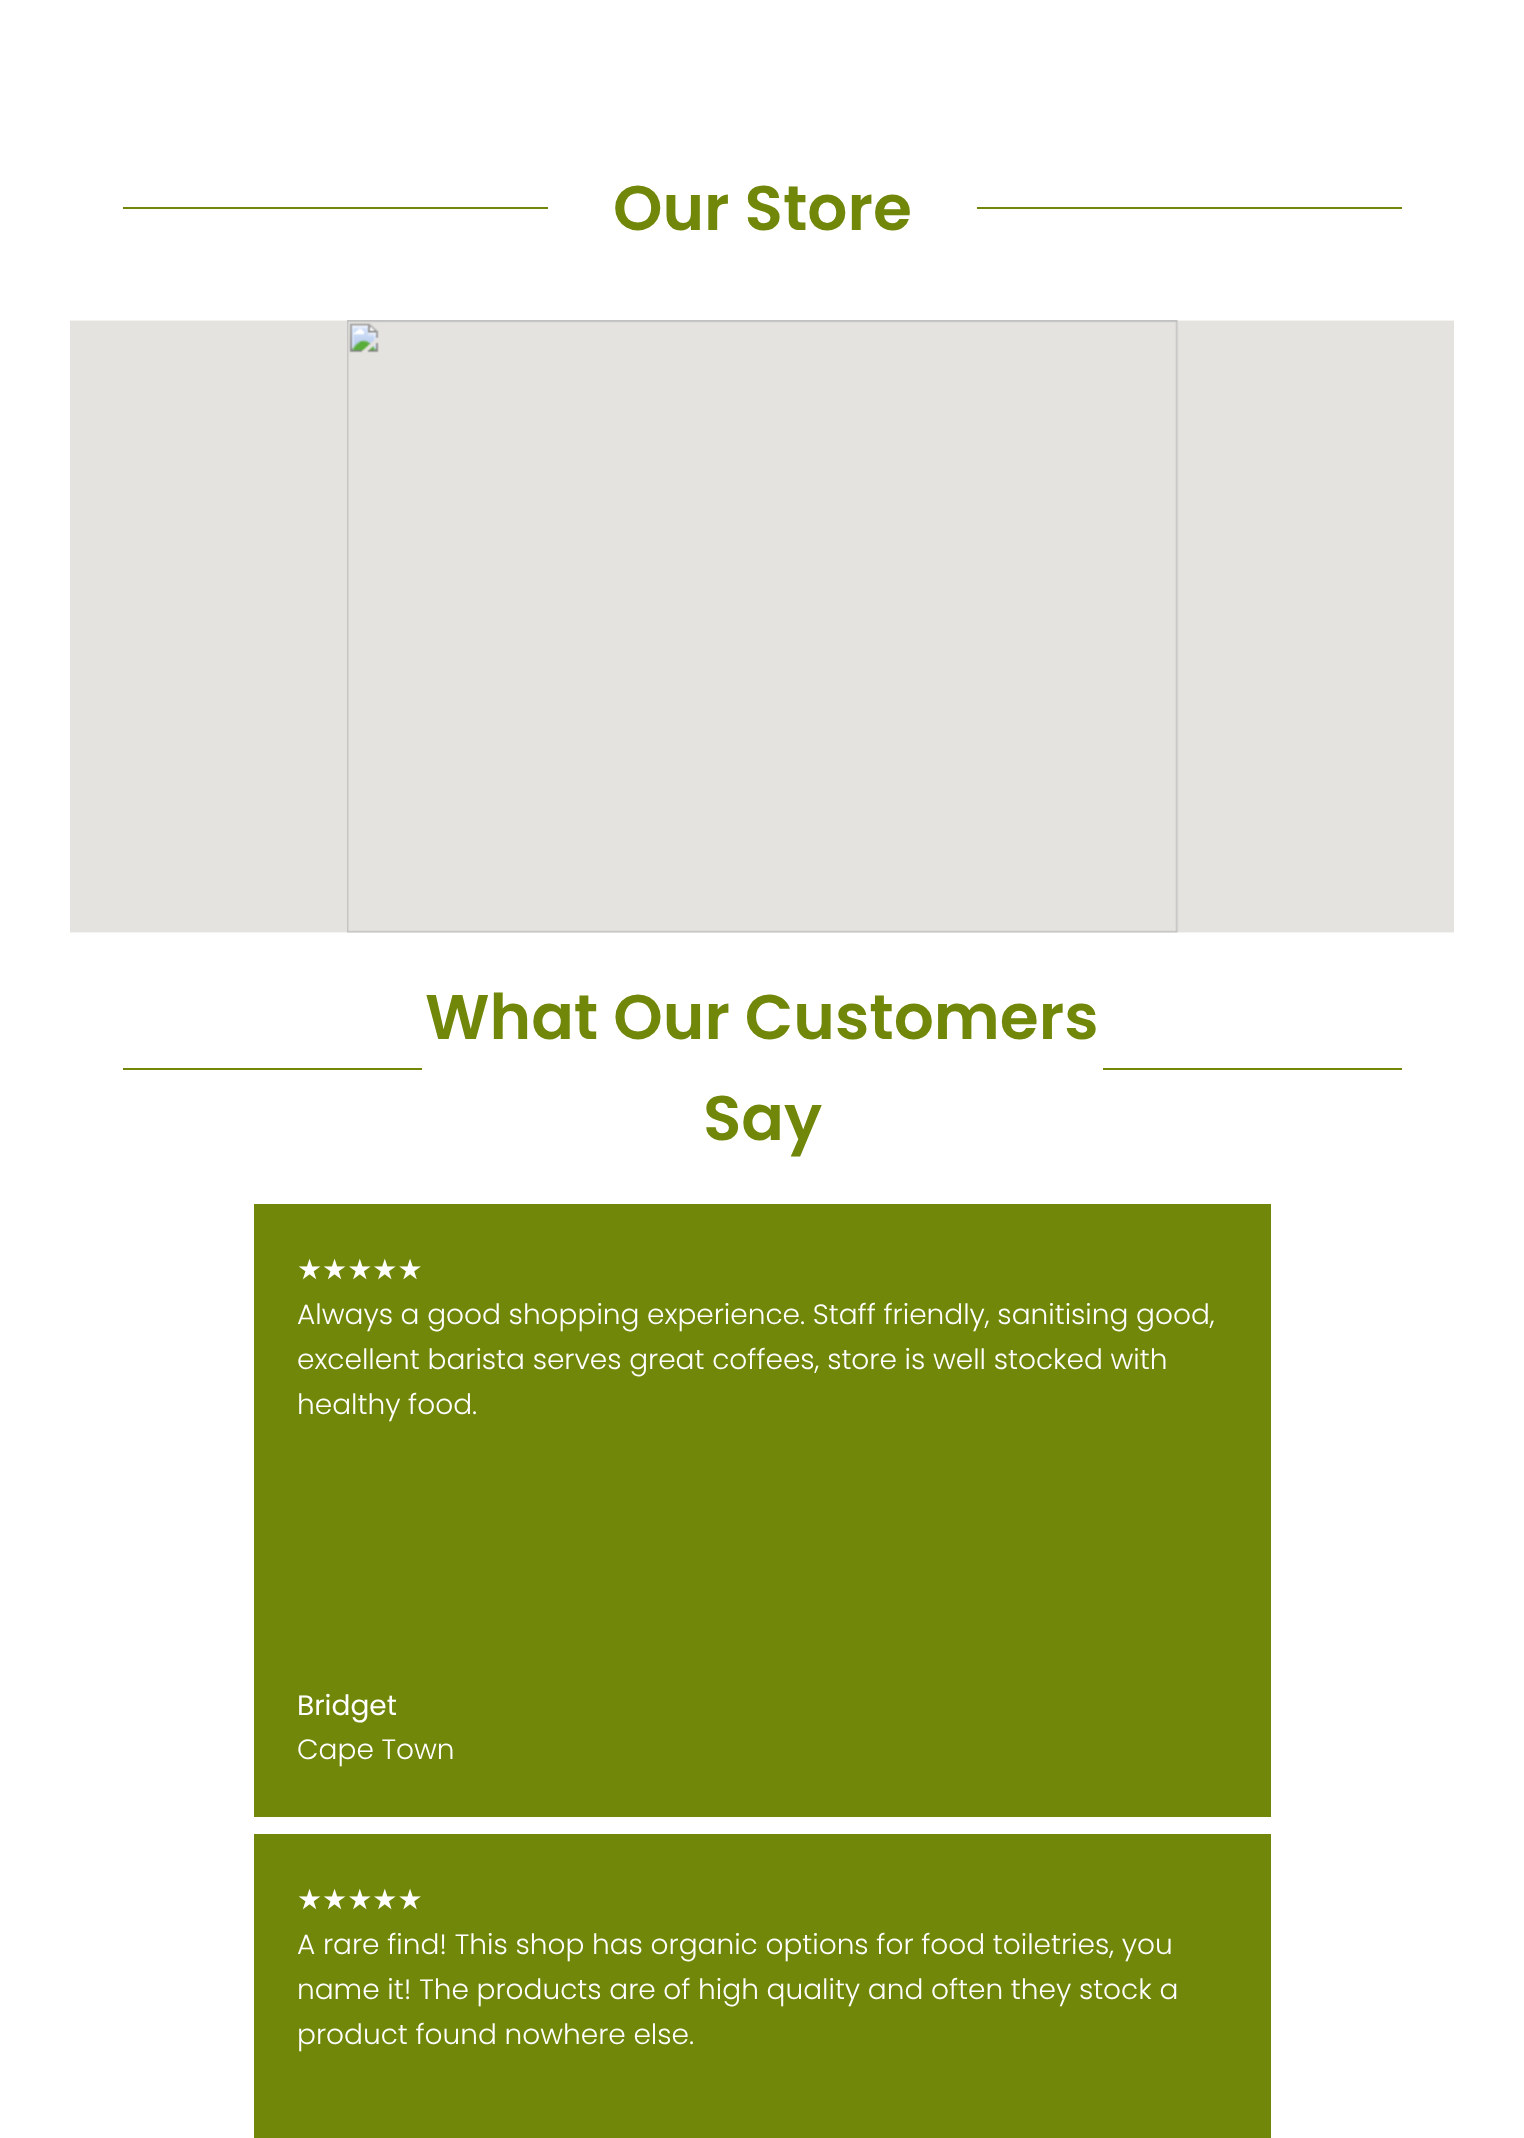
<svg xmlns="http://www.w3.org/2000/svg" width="1524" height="2138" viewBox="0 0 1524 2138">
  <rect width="100%" height="100%" fill="rgb(255,255,255)"/>
  <rect x="123" y="207" width="425" height="2" fill="rgb(112,135,9)"/>
  <text x="613" y="230" font-family="Poppins" font-size="63" font-weight="600" fill="rgb(112,135,9)">Our Store</text>
  <rect x="977" y="207" width="425" height="2" fill="rgb(112,135,9)"/>
  <image x="70" y="320" width="1384" height="613" href="pic1.png"/>
  <rect x="123" y="1068" width="299" height="2" fill="rgb(112,135,9)"/>
  <g font-family="Poppins" font-size="63" font-weight="600" fill="rgb(112,135,9)">
    <text x="425" y="1039">What Our Customers</text>
    <text x="703" y="1140">Say</text>
  </g>
  <rect x="1103" y="1068" width="299" height="2" fill="rgb(112,135,9)"/>
  <rect x="254" y="1204" width="1017" height="613" fill="rgb(112,135,9)"/>
  <text x="297" y="1279" font-family="DejaVu Sans" font-size="28" fill="rgb(255,255,255)">★★★★★</text>
  <g font-family="Poppins" font-size="28" font-weight="300" fill="rgb(255,255,255)">
    <text>
      <tspan x="297" y="1324">Always a good shopping experience. Staff friendly, sanitising good,</tspan>
      <tspan x="297" y="1369">excellent barista serves great coffees, store is well stocked with</tspan>
      <tspan x="297" y="1414">healthy food.</tspan>
    </text>
  </g>
  <text x="297" y="1715" font-family="Poppins" font-size="28" fill="rgb(255,255,255)">Bridget</text>
  <text x="297" y="1759" font-family="Poppins" font-size="28" font-weight="300" fill="rgb(255,255,255)">Cape Town</text>
  <rect x="254" y="1834" width="1017" height="304" fill="rgb(112,135,9)"/>
  <text x="297" y="1909" font-family="DejaVu Sans" font-size="28" fill="rgb(255,255,255)">★★★★★</text>
  <g font-family="Poppins" font-size="28" font-weight="300" fill="rgb(255,255,255)">
    <text>
      <tspan x="297" y="1954">A rare find! This shop has organic options for food toiletries, you</tspan>
      <tspan x="297" y="1999">name it! The products are of high quality and often they stock a</tspan>
      <tspan x="297" y="2044">product found nowhere else.</tspan>
    </text>
  </g>
</svg>
